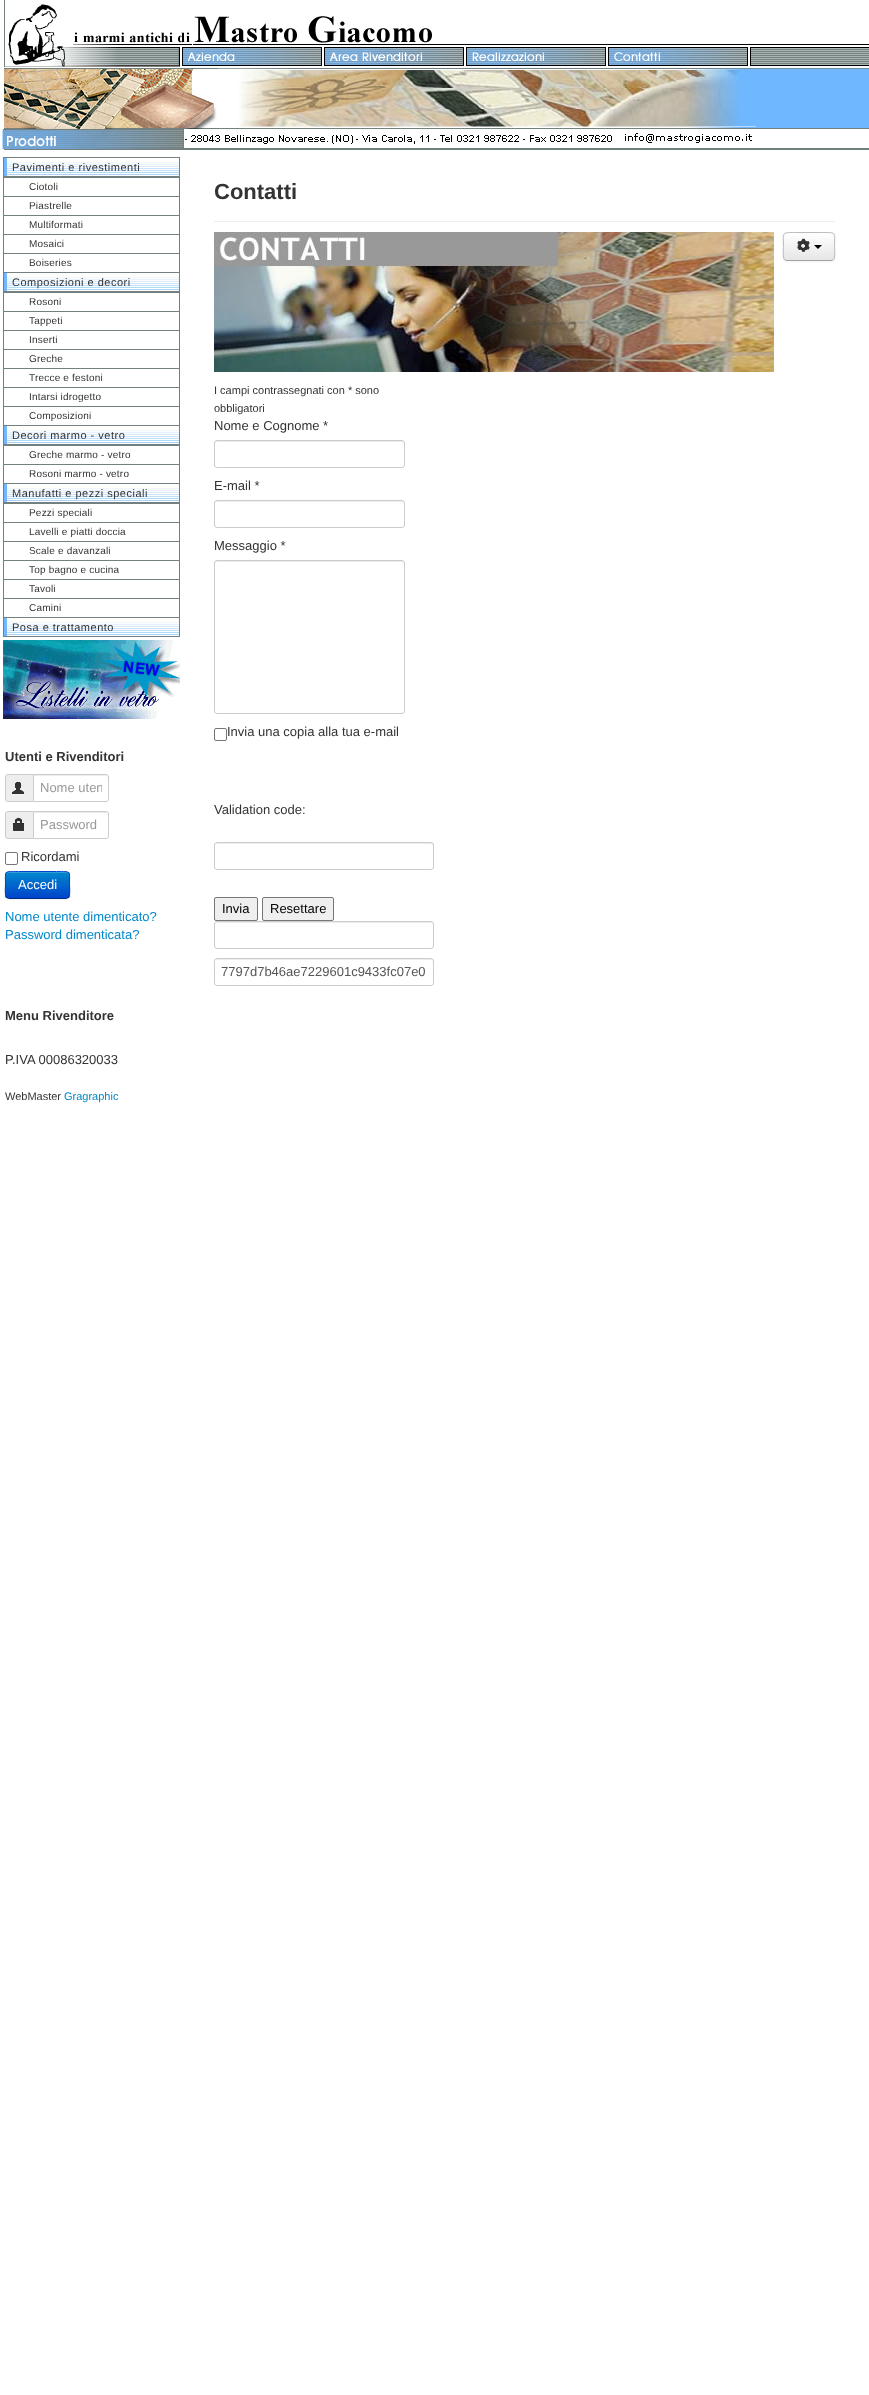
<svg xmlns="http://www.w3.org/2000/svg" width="869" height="2395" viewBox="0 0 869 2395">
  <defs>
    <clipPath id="clip1"><rect x="40" y="780" width="62" height="15"/></clipPath>
    <clipPath id="clip2"><rect x="5" y="871" width="65" height="28" rx="4"/></clipPath>
    <linearGradient id="g1" gradientUnits="userSpaceOnUse" x1="38" y1="872" x2="38" y2="898"><stop offset="0" stop-color="rgb(0,136,204)"/><stop offset="1" stop-color="rgb(0,68,204)"/></linearGradient>
    <clipPath id="clip3"><rect x="783" y="232" width="52" height="29" rx="4"/></clipPath>
    <linearGradient id="g2" gradientUnits="userSpaceOnUse" x1="809" y1="233" x2="809" y2="260"><stop offset="0" stop-color="rgb(255,255,255)"/><stop offset="1" stop-color="rgb(230,230,230)"/></linearGradient>
  </defs>
  <rect width="100%" height="100%" fill="rgb(255,255,255)"/>
  <image x="756" y="44" width="113" height="106" href="pic1.png"/>
  <image x="0" y="0" width="756" height="150" href="pic2.png"/>
  <image x="4" y="158" width="175" height="18" href="pic3.png"/>
  <rect x="3.5" y="157.5" width="176" height="19" fill="none" stroke="rgb(115,128,128)"/>
  <text x="12" y="171" font-family="Liberation Sans" font-size="11" letter-spacing="0.5" fill="rgb(51,51,51)">Pavimenti e rivestimenti</text>
  <rect x="3" y="177" width="177" height="1" fill="rgb(115,128,128)"/>
  <rect x="179" y="177" width="1" height="19" fill="rgb(115,128,128)"/>
  <rect x="3" y="177" width="1" height="19" fill="rgb(115,128,128)"/>
  <text x="29" y="190" font-family="Liberation Sans" font-size="10" letter-spacing="0.2" fill="rgb(51,51,51)">Ciotoli</text>
  <rect x="3" y="196" width="177" height="1" fill="rgb(115,128,128)"/>
  <rect x="179" y="196" width="1" height="19" fill="rgb(115,128,128)"/>
  <rect x="3" y="196" width="1" height="19" fill="rgb(115,128,128)"/>
  <text x="29" y="209" font-family="Liberation Sans" font-size="10" letter-spacing="0.2" fill="rgb(51,51,51)">Piastrelle</text>
  <rect x="3" y="215" width="177" height="1" fill="rgb(115,128,128)"/>
  <rect x="179" y="215" width="1" height="19" fill="rgb(115,128,128)"/>
  <rect x="3" y="215" width="1" height="19" fill="rgb(115,128,128)"/>
  <text x="29" y="228" font-family="Liberation Sans" font-size="10" letter-spacing="0.2" fill="rgb(51,51,51)">Multiformati</text>
  <rect x="3" y="234" width="177" height="1" fill="rgb(115,128,128)"/>
  <rect x="179" y="234" width="1" height="19" fill="rgb(115,128,128)"/>
  <rect x="3" y="234" width="1" height="19" fill="rgb(115,128,128)"/>
  <text x="29" y="247" font-family="Liberation Sans" font-size="10" letter-spacing="0.2" fill="rgb(51,51,51)">Mosaici</text>
  <rect x="3" y="253" width="177" height="1" fill="rgb(115,128,128)"/>
  <rect x="179" y="253" width="1" height="19" fill="rgb(115,128,128)"/>
  <rect x="3" y="253" width="1" height="19" fill="rgb(115,128,128)"/>
  <text x="29" y="266" font-family="Liberation Sans" font-size="10" letter-spacing="0.2" fill="rgb(51,51,51)">Boiseries</text>
  <image x="4" y="273" width="175" height="18" href="pic3.png"/>
  <rect x="3.5" y="272.5" width="176" height="19" fill="none" stroke="rgb(115,128,128)"/>
  <text x="12" y="286" font-family="Liberation Sans" font-size="11" letter-spacing="0.5" fill="rgb(51,51,51)">Composizioni e decori</text>
  <rect x="3" y="292" width="177" height="1" fill="rgb(115,128,128)"/>
  <rect x="179" y="292" width="1" height="19" fill="rgb(115,128,128)"/>
  <rect x="3" y="292" width="1" height="19" fill="rgb(115,128,128)"/>
  <text x="29" y="305" font-family="Liberation Sans" font-size="10" letter-spacing="0.2" fill="rgb(51,51,51)">Rosoni</text>
  <rect x="3" y="311" width="177" height="1" fill="rgb(115,128,128)"/>
  <rect x="179" y="311" width="1" height="19" fill="rgb(115,128,128)"/>
  <rect x="3" y="311" width="1" height="19" fill="rgb(115,128,128)"/>
  <text x="29" y="324" font-family="Liberation Sans" font-size="10" letter-spacing="0.2" fill="rgb(51,51,51)">Tappeti</text>
  <rect x="3" y="330" width="177" height="1" fill="rgb(115,128,128)"/>
  <rect x="179" y="330" width="1" height="19" fill="rgb(115,128,128)"/>
  <rect x="3" y="330" width="1" height="19" fill="rgb(115,128,128)"/>
  <text x="29" y="343" font-family="Liberation Sans" font-size="10" letter-spacing="0.2" fill="rgb(51,51,51)">Inserti</text>
  <rect x="3" y="349" width="177" height="1" fill="rgb(115,128,128)"/>
  <rect x="179" y="349" width="1" height="19" fill="rgb(115,128,128)"/>
  <rect x="3" y="349" width="1" height="19" fill="rgb(115,128,128)"/>
  <text x="29" y="362" font-family="Liberation Sans" font-size="10" letter-spacing="0.2" fill="rgb(51,51,51)">Greche</text>
  <rect x="3" y="368" width="177" height="1" fill="rgb(115,128,128)"/>
  <rect x="179" y="368" width="1" height="19" fill="rgb(115,128,128)"/>
  <rect x="3" y="368" width="1" height="19" fill="rgb(115,128,128)"/>
  <text x="29" y="381" font-family="Liberation Sans" font-size="10" letter-spacing="0.2" fill="rgb(51,51,51)">Trecce e festoni</text>
  <rect x="3" y="387" width="177" height="1" fill="rgb(115,128,128)"/>
  <rect x="179" y="387" width="1" height="19" fill="rgb(115,128,128)"/>
  <rect x="3" y="387" width="1" height="19" fill="rgb(115,128,128)"/>
  <text x="29" y="400" font-family="Liberation Sans" font-size="10" letter-spacing="0.2" fill="rgb(51,51,51)">Intarsi idrogetto</text>
  <rect x="3" y="406" width="177" height="1" fill="rgb(115,128,128)"/>
  <rect x="179" y="406" width="1" height="19" fill="rgb(115,128,128)"/>
  <rect x="3" y="406" width="1" height="19" fill="rgb(115,128,128)"/>
  <text x="29" y="419" font-family="Liberation Sans" font-size="10" letter-spacing="0.2" fill="rgb(51,51,51)">Composizioni</text>
  <image x="4" y="426" width="175" height="18" href="pic3.png"/>
  <rect x="3.5" y="425.5" width="176" height="19" fill="none" stroke="rgb(115,128,128)"/>
  <text x="12" y="439" font-family="Liberation Sans" font-size="11" letter-spacing="0.5" fill="rgb(51,51,51)">Decori marmo - vetro</text>
  <rect x="3" y="445" width="177" height="1" fill="rgb(115,128,128)"/>
  <rect x="179" y="445" width="1" height="19" fill="rgb(115,128,128)"/>
  <rect x="3" y="445" width="1" height="19" fill="rgb(115,128,128)"/>
  <text x="29" y="458" font-family="Liberation Sans" font-size="10" letter-spacing="0.2" fill="rgb(51,51,51)">Greche marmo - vetro</text>
  <rect x="3" y="464" width="177" height="1" fill="rgb(115,128,128)"/>
  <rect x="179" y="464" width="1" height="19" fill="rgb(115,128,128)"/>
  <rect x="3" y="464" width="1" height="19" fill="rgb(115,128,128)"/>
  <text x="29" y="477" font-family="Liberation Sans" font-size="10" letter-spacing="0.2" fill="rgb(51,51,51)">Rosoni marmo - vetro</text>
  <image x="4" y="484" width="175" height="18" href="pic3.png"/>
  <rect x="3.5" y="483.5" width="176" height="19" fill="none" stroke="rgb(115,128,128)"/>
  <text x="12" y="497" font-family="Liberation Sans" font-size="11" letter-spacing="0.5" fill="rgb(51,51,51)">Manufatti e pezzi speciali</text>
  <rect x="3" y="503" width="177" height="1" fill="rgb(115,128,128)"/>
  <rect x="179" y="503" width="1" height="19" fill="rgb(115,128,128)"/>
  <rect x="3" y="503" width="1" height="19" fill="rgb(115,128,128)"/>
  <text x="29" y="516" font-family="Liberation Sans" font-size="10" letter-spacing="0.2" fill="rgb(51,51,51)">Pezzi speciali</text>
  <rect x="3" y="522" width="177" height="1" fill="rgb(115,128,128)"/>
  <rect x="179" y="522" width="1" height="19" fill="rgb(115,128,128)"/>
  <rect x="3" y="522" width="1" height="19" fill="rgb(115,128,128)"/>
  <text x="29" y="535" font-family="Liberation Sans" font-size="10" letter-spacing="0.2" fill="rgb(51,51,51)">Lavelli e piatti doccia</text>
  <rect x="3" y="541" width="177" height="1" fill="rgb(115,128,128)"/>
  <rect x="179" y="541" width="1" height="19" fill="rgb(115,128,128)"/>
  <rect x="3" y="541" width="1" height="19" fill="rgb(115,128,128)"/>
  <text x="29" y="554" font-family="Liberation Sans" font-size="10" letter-spacing="0.2" fill="rgb(51,51,51)">Scale e davanzali</text>
  <rect x="3" y="560" width="177" height="1" fill="rgb(115,128,128)"/>
  <rect x="179" y="560" width="1" height="19" fill="rgb(115,128,128)"/>
  <rect x="3" y="560" width="1" height="19" fill="rgb(115,128,128)"/>
  <text x="29" y="573" font-family="Liberation Sans" font-size="10" letter-spacing="0.2" fill="rgb(51,51,51)">Top bagno e cucina</text>
  <rect x="3" y="579" width="177" height="1" fill="rgb(115,128,128)"/>
  <rect x="179" y="579" width="1" height="19" fill="rgb(115,128,128)"/>
  <rect x="3" y="579" width="1" height="19" fill="rgb(115,128,128)"/>
  <text x="29" y="592" font-family="Liberation Sans" font-size="10" letter-spacing="0.2" fill="rgb(51,51,51)">Tavoli</text>
  <rect x="3" y="598" width="177" height="1" fill="rgb(115,128,128)"/>
  <rect x="179" y="598" width="1" height="19" fill="rgb(115,128,128)"/>
  <rect x="3" y="598" width="1" height="19" fill="rgb(115,128,128)"/>
  <text x="29" y="611" font-family="Liberation Sans" font-size="10" letter-spacing="0.2" fill="rgb(51,51,51)">Camini</text>
  <image x="4" y="618" width="175" height="18" href="pic3.png"/>
  <rect x="3.5" y="617.5" width="176" height="19" fill="none" stroke="rgb(115,128,128)"/>
  <text x="12" y="631" font-family="Liberation Sans" font-size="11" letter-spacing="0.5" fill="rgb(51,51,51)">Posa e trattamento</text>
  <image x="3" y="640" width="177" height="79" href="pic4.png"/>
  <text x="5" y="761" font-family="Liberation Sans" font-size="13" font-weight="bold" fill="rgb(51,51,51)">Utenti e Rivenditori</text>
  <path d="M8 774.5H33.5V801.5H8C6.5 801.5 5.5 800.5 5.5 799V777C5.5 775.5 6.5 774.5 8 774.5Z" fill="rgb(238,238,238)" stroke="rgb(204,204,204)"/>
  <image x="12" y="782" width="12" height="13" href="pic5.png"/>
  <image x="13" y="782" width="12" height="11" href="pic6.png"/>
  <path d="M33 774H106C107.5 774 109 775.5 109 777V799C109 800.5 107.5 802 106 802H33Z" fill="rgb(255,255,255)"/>
  <path d="M34 776H106C107 776 108 777 108 778V777C108 776 107 775 106 775H34Z" fill="rgb(236,236,236)"/>
  <path d="M33.5 774.5H106C107.5 774.5 108.5 775.5 108.5 777V799C108.5 800.5 107.5 801.5 106 801.5H33.5Z" fill="none" stroke="rgb(204,204,204)"/>
  <g clip-path="url(#clip1)">
    <text x="40" y="792" font-family="Liberation Sans" font-size="13" fill="rgb(153,153,153)">Nome uten</text>
  </g>
  <path d="M8 811.5H33.5V838.5H8C6.5 838.5 5.5 837.5 5.5 836V814C5.5 812.5 6.5 811.5 8 811.5Z" fill="rgb(238,238,238)" stroke="rgb(204,204,204)"/>
  <image x="13" y="819" width="11" height="13" href="pic7.png"/>
  <image x="14" y="817" width="9" height="7" href="pic8.png"/>
  <path d="M33 811H106C107.5 811 109 812.5 109 814V836C109 837.5 107.5 839 106 839H33Z" fill="rgb(255,255,255)"/>
  <path d="M34 813H106C107 813 108 814 108 815V814C108 813 107 812 106 812H34Z" fill="rgb(236,236,236)"/>
  <path d="M33.5 811.5H106C107.5 811.5 108.5 812.5 108.5 814V836C108.5 837.5 107.5 838.5 106 838.5H33.5Z" fill="none" stroke="rgb(204,204,204)"/>
  <text x="40" y="829" font-family="Liberation Sans" font-size="13" fill="rgb(153,153,153)">Password</text>
  <rect x="5.5" y="852.5" width="12" height="12" rx="1.5" fill="none" stroke="rgb(118,118,118)"/>
  <text x="21" y="861" font-family="Liberation Sans" font-size="13" fill="rgb(51,51,51)">Ricordami</text>
  <rect x="5" y="872" width="65" height="28" rx="4" fill="rgba(0,0,0,0.05)" filter="blur(1px)"/>
  <g clip-path="url(#clip2)">
    <rect x="5" y="872" width="65" height="26" fill="url(#g1)"/>
  </g>
  <path d="M9 873H67L69 875C69 873 68 872 66 872H9C7 872 6 873 6 875C6 874 7 873 9 873ZM6 896V893Z" fill="rgba(255,255,255,0.2)" fill-rule="evenodd"/>
  <path d="M68.5 897.5L66.5 898.5H8.5L6.5 897.5" fill="none" stroke="rgb(0,42,128)"/>
  <path d="M6.5 897.5C4.5 895 5.5 887.5 5.5 885C5.5 870 3.5 871.5 18.5 871.5H56.5C71.5 871.5 69.5 870 69.5 885C69.5 887.5 70.5 895 68.5 897.5" fill="none" stroke="rgb(0,68,204)"/>
  <text x="18" y="889" font-family="Liberation Sans" font-size="13" fill="rgb(255,255,255)">Accedi</text>
  <g font-family="Liberation Sans" font-size="13" fill="rgb(0,136,204)">
    <text>
      <tspan x="5" y="921">Nome utente dimenticato?</tspan>
      <tspan x="5" y="939">Password dimenticata?</tspan>
    </text>
  </g>
  <text x="5" y="1020" font-family="Liberation Sans" font-size="13" font-weight="bold" fill="rgb(51,51,51)">Menu Rivenditore</text>
  <text x="5" y="1064" font-family="Liberation Sans" font-size="13" fill="rgb(51,51,51)">P.IVA 00086320033</text>
  <text x="5" y="1100" font-family="Liberation Sans" font-size="11" fill="rgb(51,51,51)">WebMaster</text>
  <text x="64" y="1100" font-family="Liberation Sans" font-size="11" fill="rgb(0,136,204)">Gragraphic</text>
  <rect x="214" y="221" width="621" height="1" fill="rgb(238,238,238)"/>
  <text x="214" y="199" font-family="Liberation Sans" font-size="22" font-weight="bold" fill="rgb(51,51,51)">Contatti</text>
  <rect x="783" y="233" width="52" height="29" rx="4" fill="rgba(0,0,0,0.05)" filter="blur(1px)"/>
  <rect x="783" y="232" width="52" height="29" rx="4" fill="rgb(245,245,245)"/>
  <g clip-path="url(#clip3)">
    <rect x="783" y="233" width="52" height="27" fill="url(#g2)"/>
  </g>
  <path d="M787 234H831C833 234 834 235 834 237C834 231 828 233 824 233H794C790 233 784 231 784 237C784 235 785 234 787 234Z" fill="rgb(255,255,255)"/>
  <path d="M833.5 259.5C833 260 832 260.5 831 260.5H787C786 260.5 785 260 784.5 259.5" fill="none" stroke="rgb(162,162,162)"/>
  <path d="M784.5 259.5C782.5 257.5 783.5 249 783.5 246.5C783.5 233 781 232.5 794.5 232.5H823.5C837 232.5 834.5 233 834.5 246.5C834.5 249 835.5 257.5 833.5 259.5" fill="none" stroke="rgb(187,187,187)"/>
  <image x="797" y="242" width="12" height="10" href="pic9.png"/>
  <image x="797" y="238" width="13" height="14" href="pic10.png"/>
  <path d="M814 245H822L818 249Z" fill="rgb(0,0,0)"/>
  <image x="214" y="232" width="560" height="140" href="pic11.png"/>
  <g font-family="Liberation Sans" font-size="11" fill="rgb(51,51,51)">
    <text>
      <tspan x="214" y="394">I campi contrassegnati con * sono</tspan>
      <tspan x="214" y="412">obbligatori</tspan>
    </text>
  </g>
  <text x="214" y="430" font-family="Liberation Sans" font-size="13" fill="rgb(51,51,51)">Nome e Cognome *</text>
  <path d="M217 442H402C403 442 404 443 404 444V443C404 442 403 441 402 441H217C216 441 215 442 215 443V444C215 443 216 442 217 442Z" fill="rgb(236,236,236)"/>
  <rect x="214.5" y="440.5" width="190" height="27" rx="2.5" fill="none" stroke="rgb(204,204,204)"/>
  <text x="214" y="490" font-family="Liberation Sans" font-size="13" fill="rgb(51,51,51)">E-mail *</text>
  <path d="M217 502H402C403 502 404 503 404 504V503C404 502 403 501 402 501H217C216 501 215 502 215 503V504C215 503 216 502 217 502Z" fill="rgb(236,236,236)"/>
  <rect x="214.5" y="500.5" width="190" height="27" rx="2.5" fill="none" stroke="rgb(204,204,204)"/>
  <text x="214" y="550" font-family="Liberation Sans" font-size="13" fill="rgb(51,51,51)">Messaggio *</text>
  <path d="M217 562H402C403 562 404 563 404 564V563C404 562 403 561 402 561H217C216 561 215 562 215 563V564C215 563 216 562 217 562Z" fill="rgb(236,236,236)"/>
  <rect x="214.5" y="560.5" width="190" height="153" rx="2.5" fill="none" stroke="rgb(204,204,204)"/>
  <rect x="214.5" y="728.5" width="12" height="12" rx="1.5" fill="none" stroke="rgb(118,118,118)"/>
  <g font-family="Liberation Sans" font-size="13" fill="rgb(51,51,51)">
    <text x="227" y="736">Invia una copia alla tua e-mail</text>
    <text x="214" y="814">Validation code:</text>
  </g>
  <path d="M217 844H431C432 844 433 845 433 846C433 845 433 843 431 843H217L216 844L215 846C215 845 216 844 217 844Z" fill="rgb(236,236,236)"/>
  <rect x="214.5" y="842.5" width="219" height="27" rx="2.5" fill="none" stroke="rgb(204,204,204)"/>
  <rect x="214.5" y="897.5" width="43" height="23" rx="1.5" fill="rgb(239,239,239)" stroke="rgb(118,118,118)"/>
  <text x="222" y="913" font-family="Liberation Sans" font-size="13" fill="rgb(0,0,0)">Invia</text>
  <rect x="262.5" y="897.5" width="71" height="23" rx="1.5" fill="rgb(239,239,239)" stroke="rgb(118,118,118)"/>
  <text x="270" y="913" font-family="Liberation Sans" font-size="13" fill="rgb(0,0,0)">Resettare</text>
  <path d="M217 923H431C432 923 433 924 433 925C433 924 433 922 431 922H217L216 923L215 925C215 924 216 923 217 923Z" fill="rgb(236,236,236)"/>
  <rect x="214.5" y="921.5" width="219" height="27" rx="2.5" fill="none" stroke="rgb(204,204,204)"/>
  <path d="M217 960H431C432 960 433 961 433 962C433 961 433 959 431 959H217L216 960L215 962C215 961 216 960 217 960Z" fill="rgb(236,236,236)"/>
  <rect x="214.5" y="958.5" width="219" height="27" rx="2.5" fill="none" stroke="rgb(204,204,204)"/>
  <text x="221" y="976" font-family="Liberation Sans" font-size="13" fill="rgb(85,85,85)">7797d7b46ae7229601c9433fc07e0</text>
</svg>
